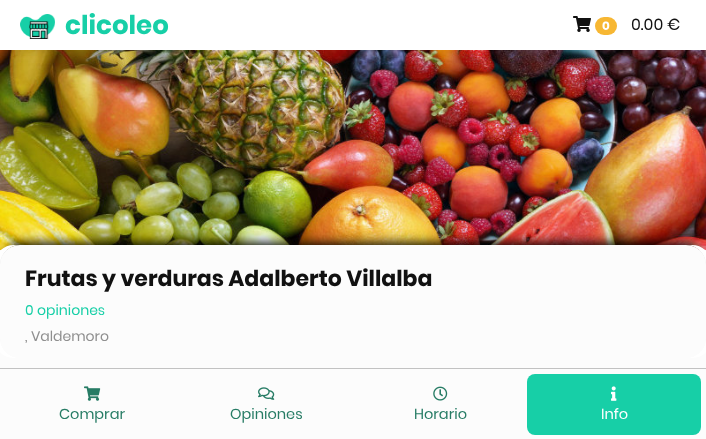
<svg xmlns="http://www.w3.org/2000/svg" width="706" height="439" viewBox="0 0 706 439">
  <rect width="100%" height="100%" fill="rgb(252,252,252)"/>
  <image x="0" y="50" width="706" height="200" href="pic3.png"/>
  <rect x="0" y="3" width="706" height="50" fill="rgba(0,0,0,0.06)" filter="blur(7.5px)"/>
  <rect x="0" y="0" width="706" height="50" fill="rgb(255,255,255)"/>
  <image x="20" y="14" width="35" height="25" href="pic1.png"/>
  <text x="65" y="34" font-family="Poppins" font-size="26" font-weight="bold" fill="rgb(23,207,167)">clicoleo</text>
  <image x="573" y="16" width="18" height="16" href="pic2.png"/>
  <rect x="595" y="17" width="22" height="18" rx="9" fill="rgb(247,183,51)"/>
  <text x="602" y="30" font-family="Poppins" font-size="12" font-weight="bold" fill="rgb(255,255,255)">0</text>
  <text x="631" y="30" font-family="Poppins" font-size="16" fill="rgb(17,17,17)">0.00 €</text>
  <rect x="8" y="243" width="690" height="97" rx="12" fill="rgb(0,0,0)" filter="blur(6px)"/>
  <path d="M14 245C3 245-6 254-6 265V338C-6 349 3 358 14 358H20C9 358 0 349 0 338V265C0 254 9 245 20 245Z" fill="rgb(255,255,255)"/>
  <path d="M686 358H692C703 358 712 349 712 338V265C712 254 703 245 692 245H686C697 245 706 254 706 265V338C706 349 697 358 686 358Z" fill="rgb(255,255,255)"/>
  <rect x="0" y="245" width="706" height="113" rx="20" fill="rgb(252,252,252)"/>
  <text x="25" y="286" font-family="Poppins" font-size="22" font-weight="bold" fill="rgb(17,17,17)">Frutas y verduras Adalberto Villalba</text>
  <text x="25" y="315" font-family="Poppins" font-size="14" fill="rgb(23,207,167)">0 opiniones</text>
  <text x="25" y="341" font-family="Poppins" font-size="14" fill="rgb(143,143,143)">, Valdemoro</text>
  <rect x="0" y="368" width="706" height="1" fill="rgb(194,194,194)"/>
  <image x="84" y="386" width="17" height="15" href="pic4.png"/>
  <text x="59" y="419" font-family="Poppins" font-size="14.5" fill="rgb(39,124,101)">Comprar</text>
  <image x="258" y="387" width="17" height="13" href="pic5.png"/>
  <text x="230" y="419" font-family="Poppins" font-size="14.5" fill="rgb(39,124,101)">Opiniones</text>
  <image x="433" y="386" width="15" height="15" href="pic6.png"/>
  <text x="414" y="419" font-family="Poppins" font-size="14.5" fill="rgb(39,124,101)">Horario</text>
  <rect x="527" y="374" width="174" height="61" rx="8" fill="rgb(23,207,167)"/>
  <image x="611" y="386" width="6" height="15" href="pic7.png"/>
  <text x="601" y="419" font-family="Poppins" font-size="14.5" fill="rgb(255,255,255)">Info</text>
</svg>
